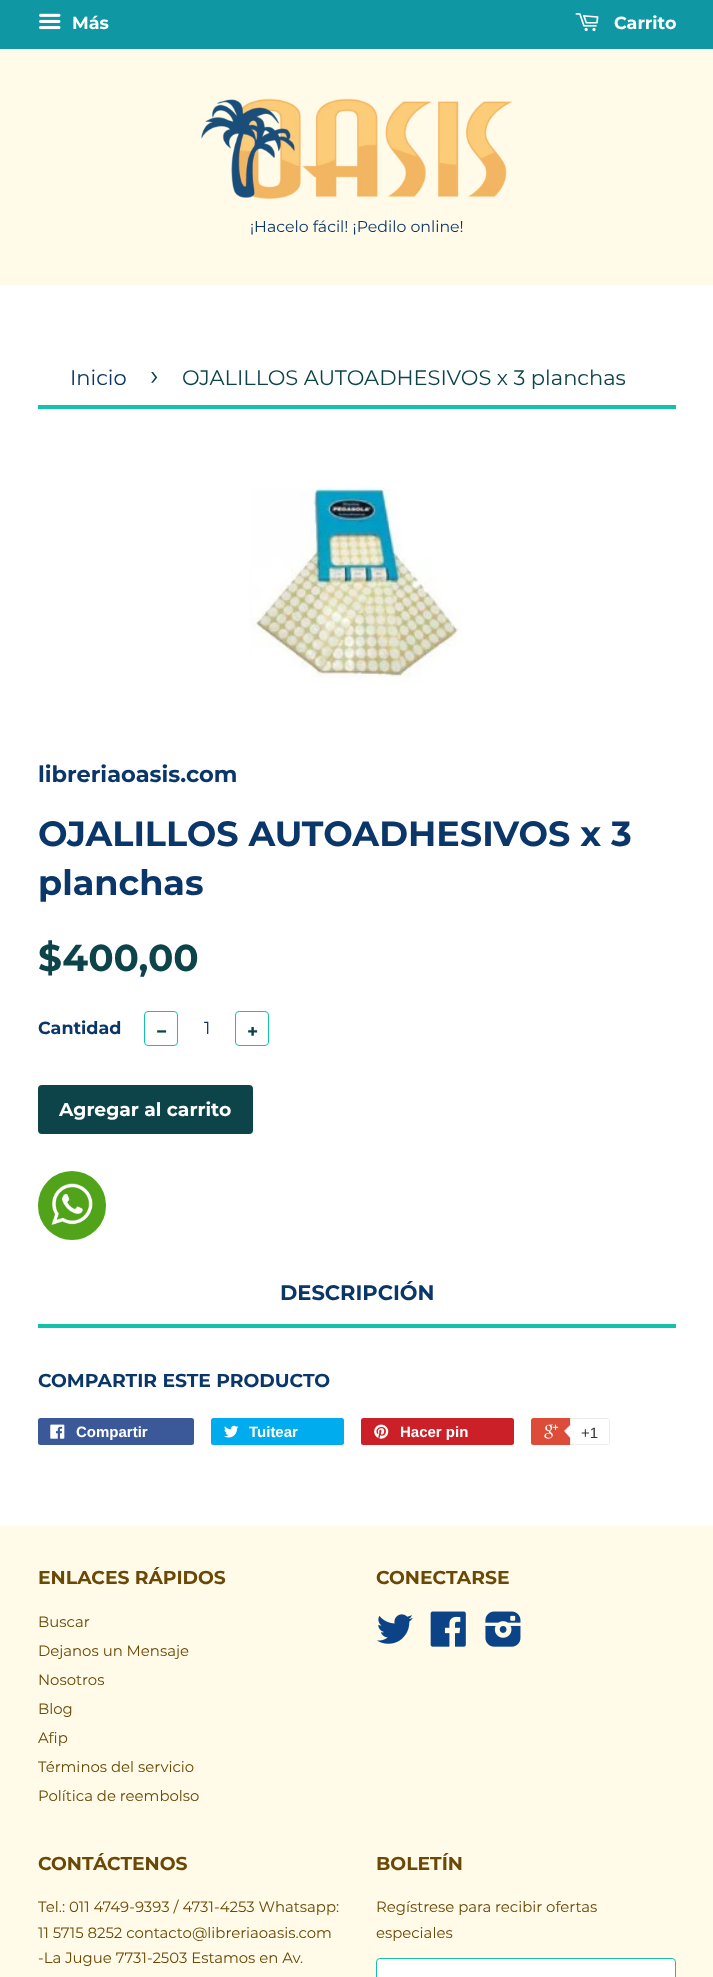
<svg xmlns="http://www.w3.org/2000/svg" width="713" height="1977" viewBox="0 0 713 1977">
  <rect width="100%" height="100%" fill="rgb(255,255,255)"/>
  <rect x="0" y="0" width="713" height="49" fill="rgb(15,152,164)"/>
  <image x="39" y="13" width="22" height="17" href="pic1.png"/>
  <text x="72" y="29" font-family="Montserrat" font-size="17.5" font-weight="bold" fill="rgb(255,255,255)">Más</text>
  <image x="575" y="13" width="24" height="19" href="pic2.png"/>
  <text x="614" y="29" font-family="Montserrat" font-size="17.5" font-weight="bold" fill="rgb(255,255,255)">Carrito</text>
  <rect x="0" y="49" width="713" height="236" fill="rgb(255,251,232)"/>
  <image x="201" y="98" width="312" height="101" href="pic3.png"/>
  <text x="250" y="232" font-family="Montserrat" font-size="15.75" fill="rgb(10,54,106)">¡Hacelo fácil! ¡Pedilo online!</text>
  <rect x="38" y="405" width="638" height="4" fill="rgb(18,194,173)"/>
  <text x="70" y="385" font-family="Montserrat" font-size="21" fill="rgb(10,54,106)">Inicio</text>
  <text x="150" y="385" font-family="Montserrat" font-size="29" fill="rgb(12,68,73)">›</text>
  <text x="182" y="385" font-family="Montserrat" font-size="21" fill="rgb(12,68,73)">OJALILLOS AUTOADHESIVOS x 3 planchas</text>
  <image x="249" y="487" width="213" height="196" href="pic4.png"/>
  <text x="38" y="782" font-family="Montserrat" font-size="22.5" font-weight="bold" fill="rgb(10,54,106)">libreriaoasis.com</text>
  <g font-family="Montserrat" font-size="35" font-weight="bold" fill="rgb(10,54,106)">
    <text>
      <tspan x="38" y="846">OJALILLOS AUTOADHESIVOS x 3</tspan>
      <tspan x="38" y="895">planchas</tspan>
    </text>
  </g>
  <text x="38" y="971" font-family="Montserrat" font-size="37.5" font-weight="bold" fill="rgb(12,68,73)">$400,00</text>
  <text x="38" y="1034" font-family="Montserrat" font-size="17.5" font-weight="bold" fill="rgb(10,54,106)">Cantidad</text>
  <rect x="144.5" y="1011.5" width="33" height="34" rx="3.5" fill="none" stroke="rgb(18,194,173)"/>
  <text x="156" y="1038" font-family="Montserrat" font-size="18.75" font-weight="bold" fill="rgb(12,68,73)">−</text>
  <text x="204" y="1034" font-family="Montserrat" font-size="17.5" fill="rgb(10,54,106)">1</text>
  <rect x="235.5" y="1011.5" width="33" height="34" rx="3.5" fill="none" stroke="rgb(18,194,173)"/>
  <text x="247" y="1038" font-family="Montserrat" font-size="18.75" font-weight="bold" fill="rgb(12,68,73)">+</text>
  <rect x="38" y="1085" width="215" height="49" rx="4" fill="rgb(12,68,73)"/>
  <text x="59" y="1116" font-family="Montserrat" font-size="18.75" font-weight="bold" fill="rgb(255,255,255)">Agregar al carrito</text>
  <rect x="38" y="1171" width="68" height="69" rx="34" fill="rgb(81,164,25)"/>
  <image x="51" y="1183" width="42" height="42" href="pic5.png"/>
  <rect x="38" y="1324" width="638" height="4" fill="rgb(18,194,173)"/>
  <text x="280" y="1300" font-family="Montserrat" font-size="21" font-weight="bold" fill="rgb(10,54,106)">DESCRIPCIÓN</text>
  <text x="38" y="1387" font-family="Montserrat" font-size="18.75" font-weight="bold" fill="rgb(10,54,106)">COMPARTIR ESTE PRODUCTO</text>
  <rect x="38" y="1418" width="156" height="27" rx="2.5" fill="rgb(59,89,152)"/>
  <image x="50" y="1424" width="15" height="15" href="pic6.png"/>
  <text x="76" y="1437" font-family="Liberation Sans" font-size="15" font-weight="bold" fill="rgb(255,255,255)">Compartir</text>
  <rect x="211" y="1418" width="133" height="27" rx="2.5" fill="rgb(0,172,237)"/>
  <image x="224" y="1425" width="15" height="13" href="pic7.png"/>
  <text x="249" y="1437" font-family="Liberation Sans" font-size="15" font-weight="bold" fill="rgb(255,255,255)">Tuitear</text>
  <rect x="361" y="1418" width="153" height="27" rx="2.5" fill="rgb(203,32,39)"/>
  <image x="374" y="1424" width="15" height="15" href="pic8.png"/>
  <text x="400" y="1437" font-family="Liberation Sans" font-size="15" font-weight="bold" fill="rgb(255,255,255)">Hacer pin</text>
  <rect x="531" y="1418" width="77" height="27" rx="2.5" fill="rgb(221,75,57)"/>
  <image x="544" y="1424" width="15" height="15" href="pic9.png"/>
  <path d="M570.5 1418.5H607.5C608.5 1418.5 609.5 1419.5 609.5 1420.5V1442.5C609.5 1443.5 608.5 1444.5 607.5 1444.5H570.5Z" fill="rgb(255,255,255)" stroke="rgb(236,236,236)"/>
  <path d="M571 1424V1439L564 1431Z" fill="rgb(236,236,236)"/>
  <path d="M572.5 1424V1439L565 1431Z" fill="rgb(255,255,255)"/>
  <text x="581" y="1438" font-family="Liberation Sans" font-size="15" fill="rgb(51,51,51)">+1</text>
  <rect x="0" y="1526" width="713" height="451" fill="rgb(255,251,232)"/>
  <text x="38" y="1584" font-family="Montserrat" font-size="18.75" font-weight="bold" fill="rgb(106,72,6)">ENLACES RÁPIDOS</text>
  <g font-family="Montserrat" font-size="14.9" fill="rgb(106,72,6)">
    <text>
      <tspan x="38" y="1627">Buscar</tspan>
      <tspan x="38" y="1656">Dejanos un Mensaje</tspan>
      <tspan x="38" y="1685">Nosotros</tspan>
      <tspan x="38" y="1714">Blog</tspan>
      <tspan x="38" y="1743">Afip</tspan>
      <tspan x="38" y="1772">Términos del servicio</tspan>
      <tspan x="38" y="1801">Política de reembolso</tspan>
    </text>
  </g>
  <text x="376" y="1584" font-family="Montserrat" font-size="18.75" font-weight="bold" fill="rgb(106,72,6)">CONECTARSE</text>
  <image x="377" y="1614" width="36" height="30" href="pic10.png"/>
  <image x="430" y="1611" width="36" height="36" href="pic11.png"/>
  <image x="485" y="1611" width="36" height="36" href="pic12.png"/>
  <text x="38" y="1870" font-family="Montserrat" font-size="18.75" font-weight="bold" fill="rgb(106,72,6)">CONTÁCTENOS</text>
  <g font-family="Montserrat" font-size="14.9" fill="rgb(106,72,6)">
    <text>
      <tspan x="38" y="1912">Tel.: 011 4749-9393 / 4731-4253 Whatsapp:</tspan>
      <tspan x="38" y="1938">11 5715 8252 contacto@libreriaoasis.com</tspan>
      <tspan x="38" y="1963">-La Jugue 7731-2503 Estamos en Av.</tspan>
    </text>
  </g>
  <text x="376" y="1870" font-family="Montserrat" font-size="18.75" font-weight="bold" fill="rgb(106,72,6)">BOLETÍN</text>
  <g font-family="Montserrat" font-size="14.9" fill="rgb(106,72,6)">
    <text>
      <tspan x="376" y="1912">Regístrese para recibir ofertas</tspan>
      <tspan x="376" y="1938">especiales</tspan>
    </text>
  </g>
  <rect x="376.5" y="1958.5" width="299" height="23" rx="3.5" fill="rgb(255,255,255)" stroke="rgb(18,194,173)"/>
</svg>
